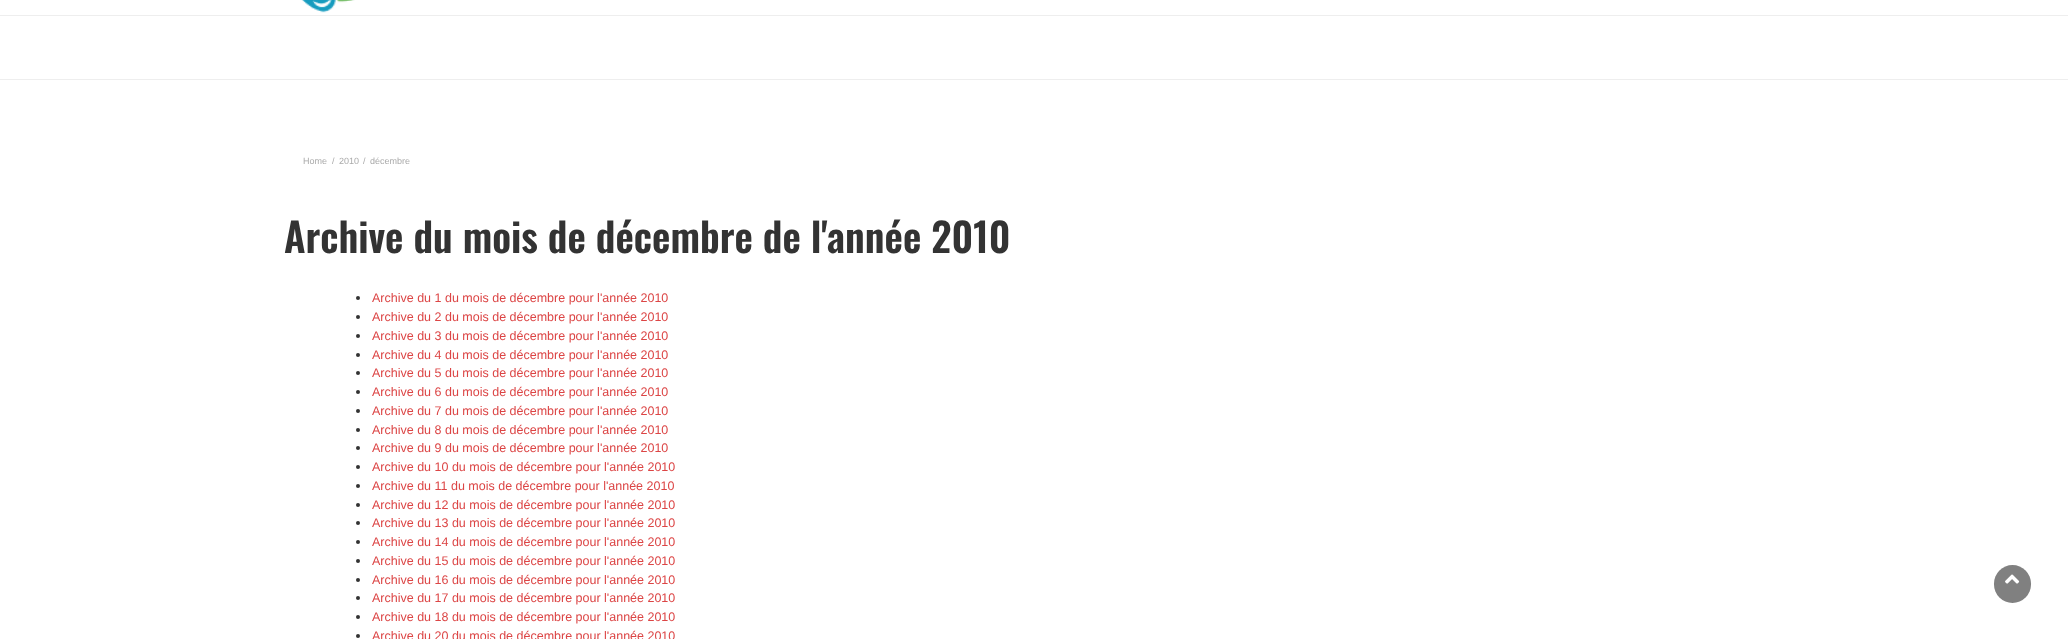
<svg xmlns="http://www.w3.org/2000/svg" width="2068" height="639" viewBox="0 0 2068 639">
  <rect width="100%" height="100%" fill="rgb(255,255,255)"/>
  <image x="301" y="0" width="54" height="13" href="pic1.png"/>
  <rect x="0" y="15" width="2068" height="1" fill="rgb(238,238,238)"/>
  <rect x="0" y="79" width="2068" height="1" fill="rgb(238,238,238)"/>
  <g font-family="Liberation Sans" font-size="9" fill="rgb(170,170,170)">
    <text x="303" y="164">Home</text>
    <text x="332" y="164">/</text>
    <text x="339" y="164">2010</text>
    <text x="363" y="164">/</text>
    <text x="370" y="164">décembre</text>
  </g>
  <text x="284" y="253" font-family="Oswald" font-size="40" font-weight="600" fill="rgb(51,51,51)">Archive du mois de décembre de l'année 2010</text>
  <circle cx="358" cy="298" r="2" fill="rgb(51,51,51)"/>
  <text x="372" y="302" font-family="Liberation Sans" font-size="12.5" fill="rgb(220,69,69)">Archive du 1 du mois de décembre pour l'année 2010</text>
  <circle cx="358" cy="317" r="2" fill="rgb(51,51,51)"/>
  <text x="372" y="321" font-family="Liberation Sans" font-size="12.5" fill="rgb(220,69,69)">Archive du 2 du mois de décembre pour l'année 2010</text>
  <circle cx="358" cy="336" r="2" fill="rgb(51,51,51)"/>
  <text x="372" y="340" font-family="Liberation Sans" font-size="12.5" fill="rgb(220,69,69)">Archive du 3 du mois de décembre pour l'année 2010</text>
  <circle cx="358" cy="355" r="2" fill="rgb(51,51,51)"/>
  <text x="372" y="359" font-family="Liberation Sans" font-size="12.5" fill="rgb(220,69,69)">Archive du 4 du mois de décembre pour l'année 2010</text>
  <circle cx="358" cy="373" r="2" fill="rgb(51,51,51)"/>
  <text x="372" y="377" font-family="Liberation Sans" font-size="12.5" fill="rgb(220,69,69)">Archive du 5 du mois de décembre pour l'année 2010</text>
  <circle cx="358" cy="392" r="2" fill="rgb(51,51,51)"/>
  <text x="372" y="396" font-family="Liberation Sans" font-size="12.5" fill="rgb(220,69,69)">Archive du 6 du mois de décembre pour l'année 2010</text>
  <circle cx="358" cy="411" r="2" fill="rgb(51,51,51)"/>
  <text x="372" y="415" font-family="Liberation Sans" font-size="12.5" fill="rgb(220,69,69)">Archive du 7 du mois de décembre pour l'année 2010</text>
  <circle cx="358" cy="430" r="2" fill="rgb(51,51,51)"/>
  <text x="372" y="434" font-family="Liberation Sans" font-size="12.5" fill="rgb(220,69,69)">Archive du 8 du mois de décembre pour l'année 2010</text>
  <circle cx="358" cy="448" r="2" fill="rgb(51,51,51)"/>
  <text x="372" y="452" font-family="Liberation Sans" font-size="12.5" fill="rgb(220,69,69)">Archive du 9 du mois de décembre pour l'année 2010</text>
  <circle cx="358" cy="467" r="2" fill="rgb(51,51,51)"/>
  <text x="372" y="471" font-family="Liberation Sans" font-size="12.5" fill="rgb(220,69,69)">Archive du 10 du mois de décembre pour l'année 2010</text>
  <circle cx="358" cy="486" r="2" fill="rgb(51,51,51)"/>
  <text x="372" y="490" font-family="Liberation Sans" font-size="12.5" fill="rgb(220,69,69)">Archive du 11 du mois de décembre pour l'année 2010</text>
  <circle cx="358" cy="505" r="2" fill="rgb(51,51,51)"/>
  <text x="372" y="509" font-family="Liberation Sans" font-size="12.5" fill="rgb(220,69,69)">Archive du 12 du mois de décembre pour l'année 2010</text>
  <circle cx="358" cy="523" r="2" fill="rgb(51,51,51)"/>
  <text x="372" y="527" font-family="Liberation Sans" font-size="12.5" fill="rgb(220,69,69)">Archive du 13 du mois de décembre pour l'année 2010</text>
  <circle cx="358" cy="542" r="2" fill="rgb(51,51,51)"/>
  <text x="372" y="546" font-family="Liberation Sans" font-size="12.5" fill="rgb(220,69,69)">Archive du 14 du mois de décembre pour l'année 2010</text>
  <circle cx="358" cy="561" r="2" fill="rgb(51,51,51)"/>
  <text x="372" y="565" font-family="Liberation Sans" font-size="12.5" fill="rgb(220,69,69)">Archive du 15 du mois de décembre pour l'année 2010</text>
  <circle cx="358" cy="580" r="2" fill="rgb(51,51,51)"/>
  <text x="372" y="584" font-family="Liberation Sans" font-size="12.5" fill="rgb(220,69,69)">Archive du 16 du mois de décembre pour l'année 2010</text>
  <circle cx="358" cy="598" r="2" fill="rgb(51,51,51)"/>
  <text x="372" y="602" font-family="Liberation Sans" font-size="12.5" fill="rgb(220,69,69)">Archive du 17 du mois de décembre pour l'année 2010</text>
  <circle cx="358" cy="617" r="2" fill="rgb(51,51,51)"/>
  <text x="372" y="621" font-family="Liberation Sans" font-size="12.5" fill="rgb(220,69,69)">Archive du 18 du mois de décembre pour l'année 2010</text>
  <circle cx="358" cy="636" r="2" fill="rgb(51,51,51)"/>
  <text x="372" y="640" font-family="Liberation Sans" font-size="12.5" fill="rgb(220,69,69)">Archive du 20 du mois de décembre pour l'année 2010</text>
  <rect x="1994" y="565" width="37" height="38" rx="18.5" fill="rgb(128,128,128)"/>
  <image x="2005" y="574" width="15" height="10" href="pic2.png"/>
</svg>
